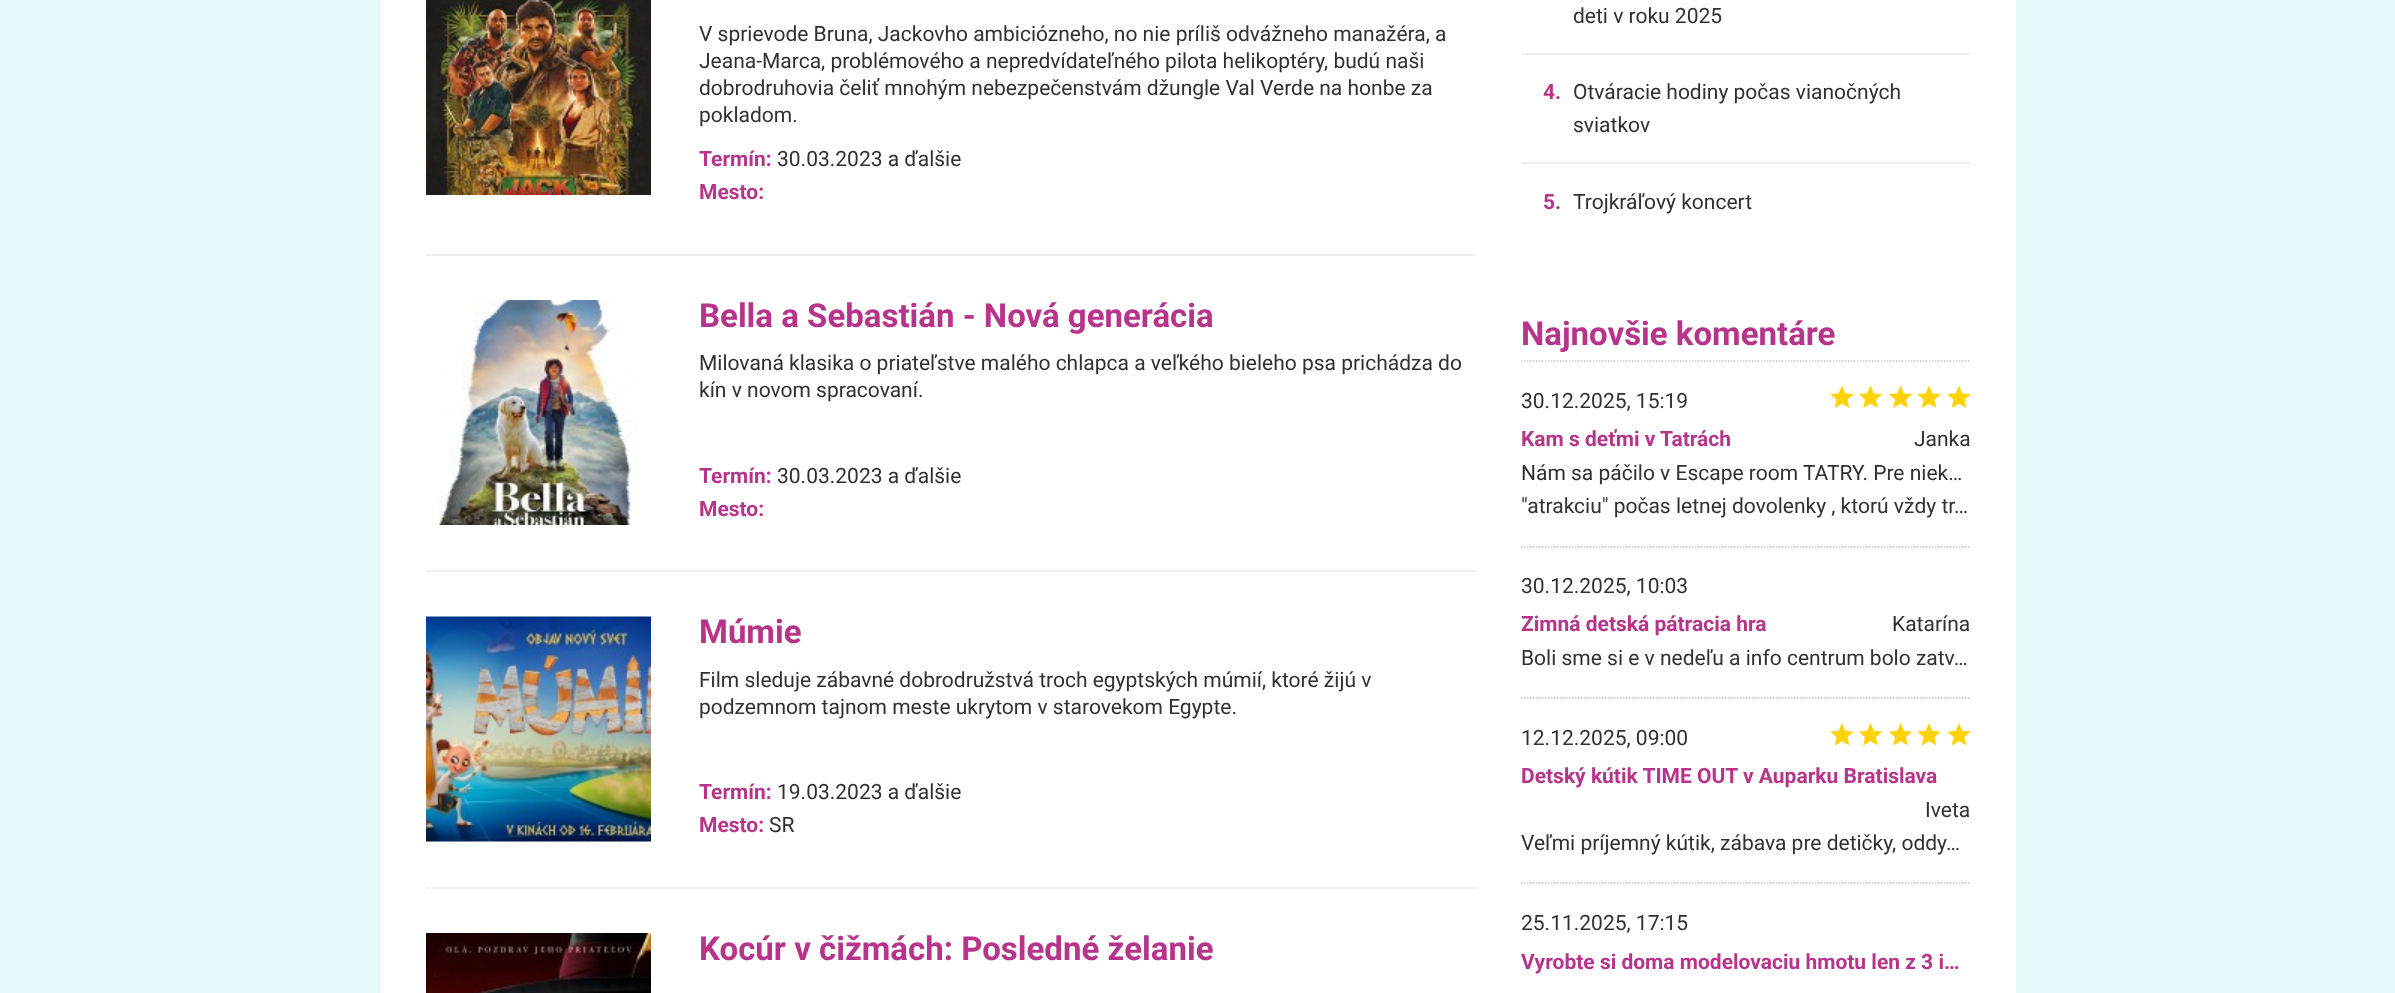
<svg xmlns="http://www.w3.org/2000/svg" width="2395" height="993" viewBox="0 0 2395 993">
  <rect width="100%" height="100%" fill="rgb(230,249,251)"/>
  <rect x="381" y="0" width="1635" height="993" fill="rgb(255,255,255)"/>
  <image x="426" y="0" width="225" height="195" href="pic1.png"/>
  <g font-family="Roboto" font-size="21" fill="rgb(49,49,49)">
    <text>
      <tspan x="699" y="41">V sprievode Bruna, Jackovho ambiciózneho, no nie príliš odvážneho manažéra, a</tspan>
      <tspan x="699" y="68">Jeana-Marca, problémového a nepredvídateľného pilota helikoptéry, budú naši</tspan>
      <tspan x="699" y="95">dobrodruhovia čeliť mnohým nebezpečenstvám džungle Val Verde na honbe za</tspan>
      <tspan x="699" y="122">pokladom.</tspan>
    </text>
  </g>
  <text x="699" y="166" font-family="Roboto" font-size="21" font-weight="bold" fill="rgb(182,53,139)">Termín:</text>
  <text x="777" y="166" font-family="Roboto" font-size="21" fill="rgb(49,49,49)">30.03.2023 a ďalšie</text>
  <text x="699" y="199" font-family="Roboto" font-size="21" font-weight="bold" fill="rgb(182,53,139)">Mesto:</text>
  <rect x="426" y="254" width="1050" height="2" fill="rgb(240,240,240)"/>
  <image x="437" y="300" width="201" height="225" href="pic2.png"/>
  <text x="699" y="327" font-family="Roboto" font-size="33" font-weight="bold" fill="rgb(182,53,139)">Bella a Sebastián - Nová generácia</text>
  <g font-family="Roboto" font-size="21" fill="rgb(49,49,49)">
    <text>
      <tspan x="699" y="370">Milovaná klasika o priateľstve malého chlapca a veľkého bieleho psa prichádza do</tspan>
      <tspan x="699" y="397">kín v novom spracovaní.</tspan>
    </text>
  </g>
  <text x="699" y="483" font-family="Roboto" font-size="21" font-weight="bold" fill="rgb(182,53,139)">Termín:</text>
  <text x="777" y="483" font-family="Roboto" font-size="21" fill="rgb(49,49,49)">30.03.2023 a ďalšie</text>
  <text x="699" y="516" font-family="Roboto" font-size="21" font-weight="bold" fill="rgb(182,53,139)">Mesto:</text>
  <rect x="426" y="570" width="1050" height="2" fill="rgb(240,240,240)"/>
  <image x="426" y="616" width="225" height="226" href="pic3.png"/>
  <text x="699" y="643" font-family="Roboto" font-size="33" font-weight="bold" fill="rgb(182,53,139)">Múmie</text>
  <g font-family="Roboto" font-size="21" fill="rgb(49,49,49)">
    <text>
      <tspan x="699" y="687">Film sleduje zábavné dobrodružstvá troch egyptských múmií, ktoré žijú v</tspan>
      <tspan x="699" y="714">podzemnom tajnom meste ukrytom v starovekom Egypte.</tspan>
    </text>
  </g>
  <text x="699" y="799" font-family="Roboto" font-size="21" font-weight="bold" fill="rgb(182,53,139)">Termín:</text>
  <text x="777" y="799" font-family="Roboto" font-size="21" fill="rgb(49,49,49)">19.03.2023 a ďalšie</text>
  <text x="699" y="832" font-family="Roboto" font-size="21" font-weight="bold" fill="rgb(182,53,139)">Mesto:</text>
  <text x="769" y="832" font-family="Roboto" font-size="21" fill="rgb(49,49,49)">SR</text>
  <rect x="426" y="887" width="1050" height="2" fill="rgb(240,240,240)"/>
  <image x="426" y="933" width="225" height="60" href="pic4.png"/>
  <text x="699" y="960" font-family="Roboto" font-size="33" font-weight="bold" fill="rgb(182,53,139)">Kocúr v čižmách: Posledné želanie</text>
  <rect x="1521" y="53" width="450" height="2" fill="rgb(240,240,240)"/>
  <text x="1573" y="23" font-family="Roboto" font-size="21" fill="rgb(49,49,49)">deti v roku 2025</text>
  <rect x="1521" y="162" width="450" height="2" fill="rgb(240,240,240)"/>
  <text x="1543" y="99" font-family="Roboto" font-size="21" font-weight="bold" fill="rgb(182,53,139)">4.</text>
  <g font-family="Roboto" font-size="21" fill="rgb(49,49,49)">
    <text>
      <tspan x="1573" y="99">Otváracie hodiny počas vianočných</tspan>
      <tspan x="1573" y="132">sviatkov</tspan>
    </text>
  </g>
  <text x="1543" y="209" font-family="Roboto" font-size="21" font-weight="bold" fill="rgb(182,53,139)">5.</text>
  <text x="1573" y="209" font-family="Roboto" font-size="21" fill="rgb(49,49,49)">Trojkráľový koncert</text>
  <path d="M1521 361H1971" fill="none" stroke="rgb(195,195,195)" stroke-width="1.5" stroke-dasharray="1.5 1.5"/>
  <text x="1521" y="345" font-family="Roboto" font-size="33" font-weight="bold" fill="rgb(182,53,139)">Najnovšie komentáre</text>
  <path d="M1521 547H1971" fill="none" stroke="rgb(195,195,195)" stroke-width="1.5" stroke-dasharray="1.5 1.5"/>
  <text x="1521" y="408" font-family="Roboto" font-size="21" fill="rgb(49,49,49)">30.12.2025, 15:19</text>
  <image x="1830" y="386" width="24" height="22" href="pic5.png"/>
  <image x="1859" y="386" width="24" height="22" href="pic6.png"/>
  <image x="1889" y="386" width="24" height="22" href="pic6.png"/>
  <image x="1917" y="386" width="24" height="22" href="pic5.png"/>
  <image x="1947" y="386" width="24" height="22" href="pic5.png"/>
  <text x="1521" y="446" font-family="Roboto" font-size="21" font-weight="bold" fill="rgb(182,53,139)">Kam s deťmi v Tatrách</text>
  <g font-family="Roboto" font-size="21" fill="rgb(49,49,49)">
    <text x="1914" y="446">Janka</text>
    <text>
      <tspan x="1521" y="480">Nám sa páčilo v Escape room TATRY. Pre niek…</tspan>
      <tspan x="1521" y="513">"atrakciu" počas letnej dovolenky , ktorú vždy tr…</tspan>
    </text>
  </g>
  <path d="M1521 698H1971" fill="none" stroke="rgb(195,195,195)" stroke-width="1.5" stroke-dasharray="1.5 1.5"/>
  <text x="1521" y="593" font-family="Roboto" font-size="21" fill="rgb(49,49,49)">30.12.2025, 10:03</text>
  <text x="1521" y="631" font-family="Roboto" font-size="21" font-weight="bold" fill="rgb(182,53,139)">Zimná detská pátracia hra</text>
  <g font-family="Roboto" font-size="21" fill="rgb(49,49,49)">
    <text x="1892" y="631">Katarína</text>
    <text x="1521" y="665">Boli sme si e v nedeľu a info centrum bolo zatv…</text>
  </g>
  <path d="M1521 883H1971" fill="none" stroke="rgb(195,195,195)" stroke-width="1.5" stroke-dasharray="1.5 1.5"/>
  <text x="1521" y="745" font-family="Roboto" font-size="21" fill="rgb(49,49,49)">12.12.2025, 09:00</text>
  <image x="1830" y="723" width="24" height="23" href="pic7.png"/>
  <image x="1859" y="723" width="24" height="23" href="pic8.png"/>
  <image x="1889" y="723" width="24" height="23" href="pic8.png"/>
  <image x="1917" y="723" width="24" height="23" href="pic7.png"/>
  <image x="1947" y="723" width="24" height="23" href="pic7.png"/>
  <text x="1521" y="783" font-family="Roboto" font-size="21" font-weight="bold" fill="rgb(182,53,139)">Detský kútik TIME OUT v Auparku Bratislava</text>
  <g font-family="Roboto" font-size="21" fill="rgb(49,49,49)">
    <text x="1925" y="817">Iveta</text>
    <text x="1521" y="850">Veľmi príjemný kútik, zábava pre detičky, oddy…</text>
    <text x="1521" y="930">25.11.2025, 17:15</text>
  </g>
  <text x="1521" y="969" font-family="Roboto" font-size="21" font-weight="bold" fill="rgb(182,53,139)">Vyrobte si doma modelovaciu hmotu len z 3 i…</text>
</svg>
